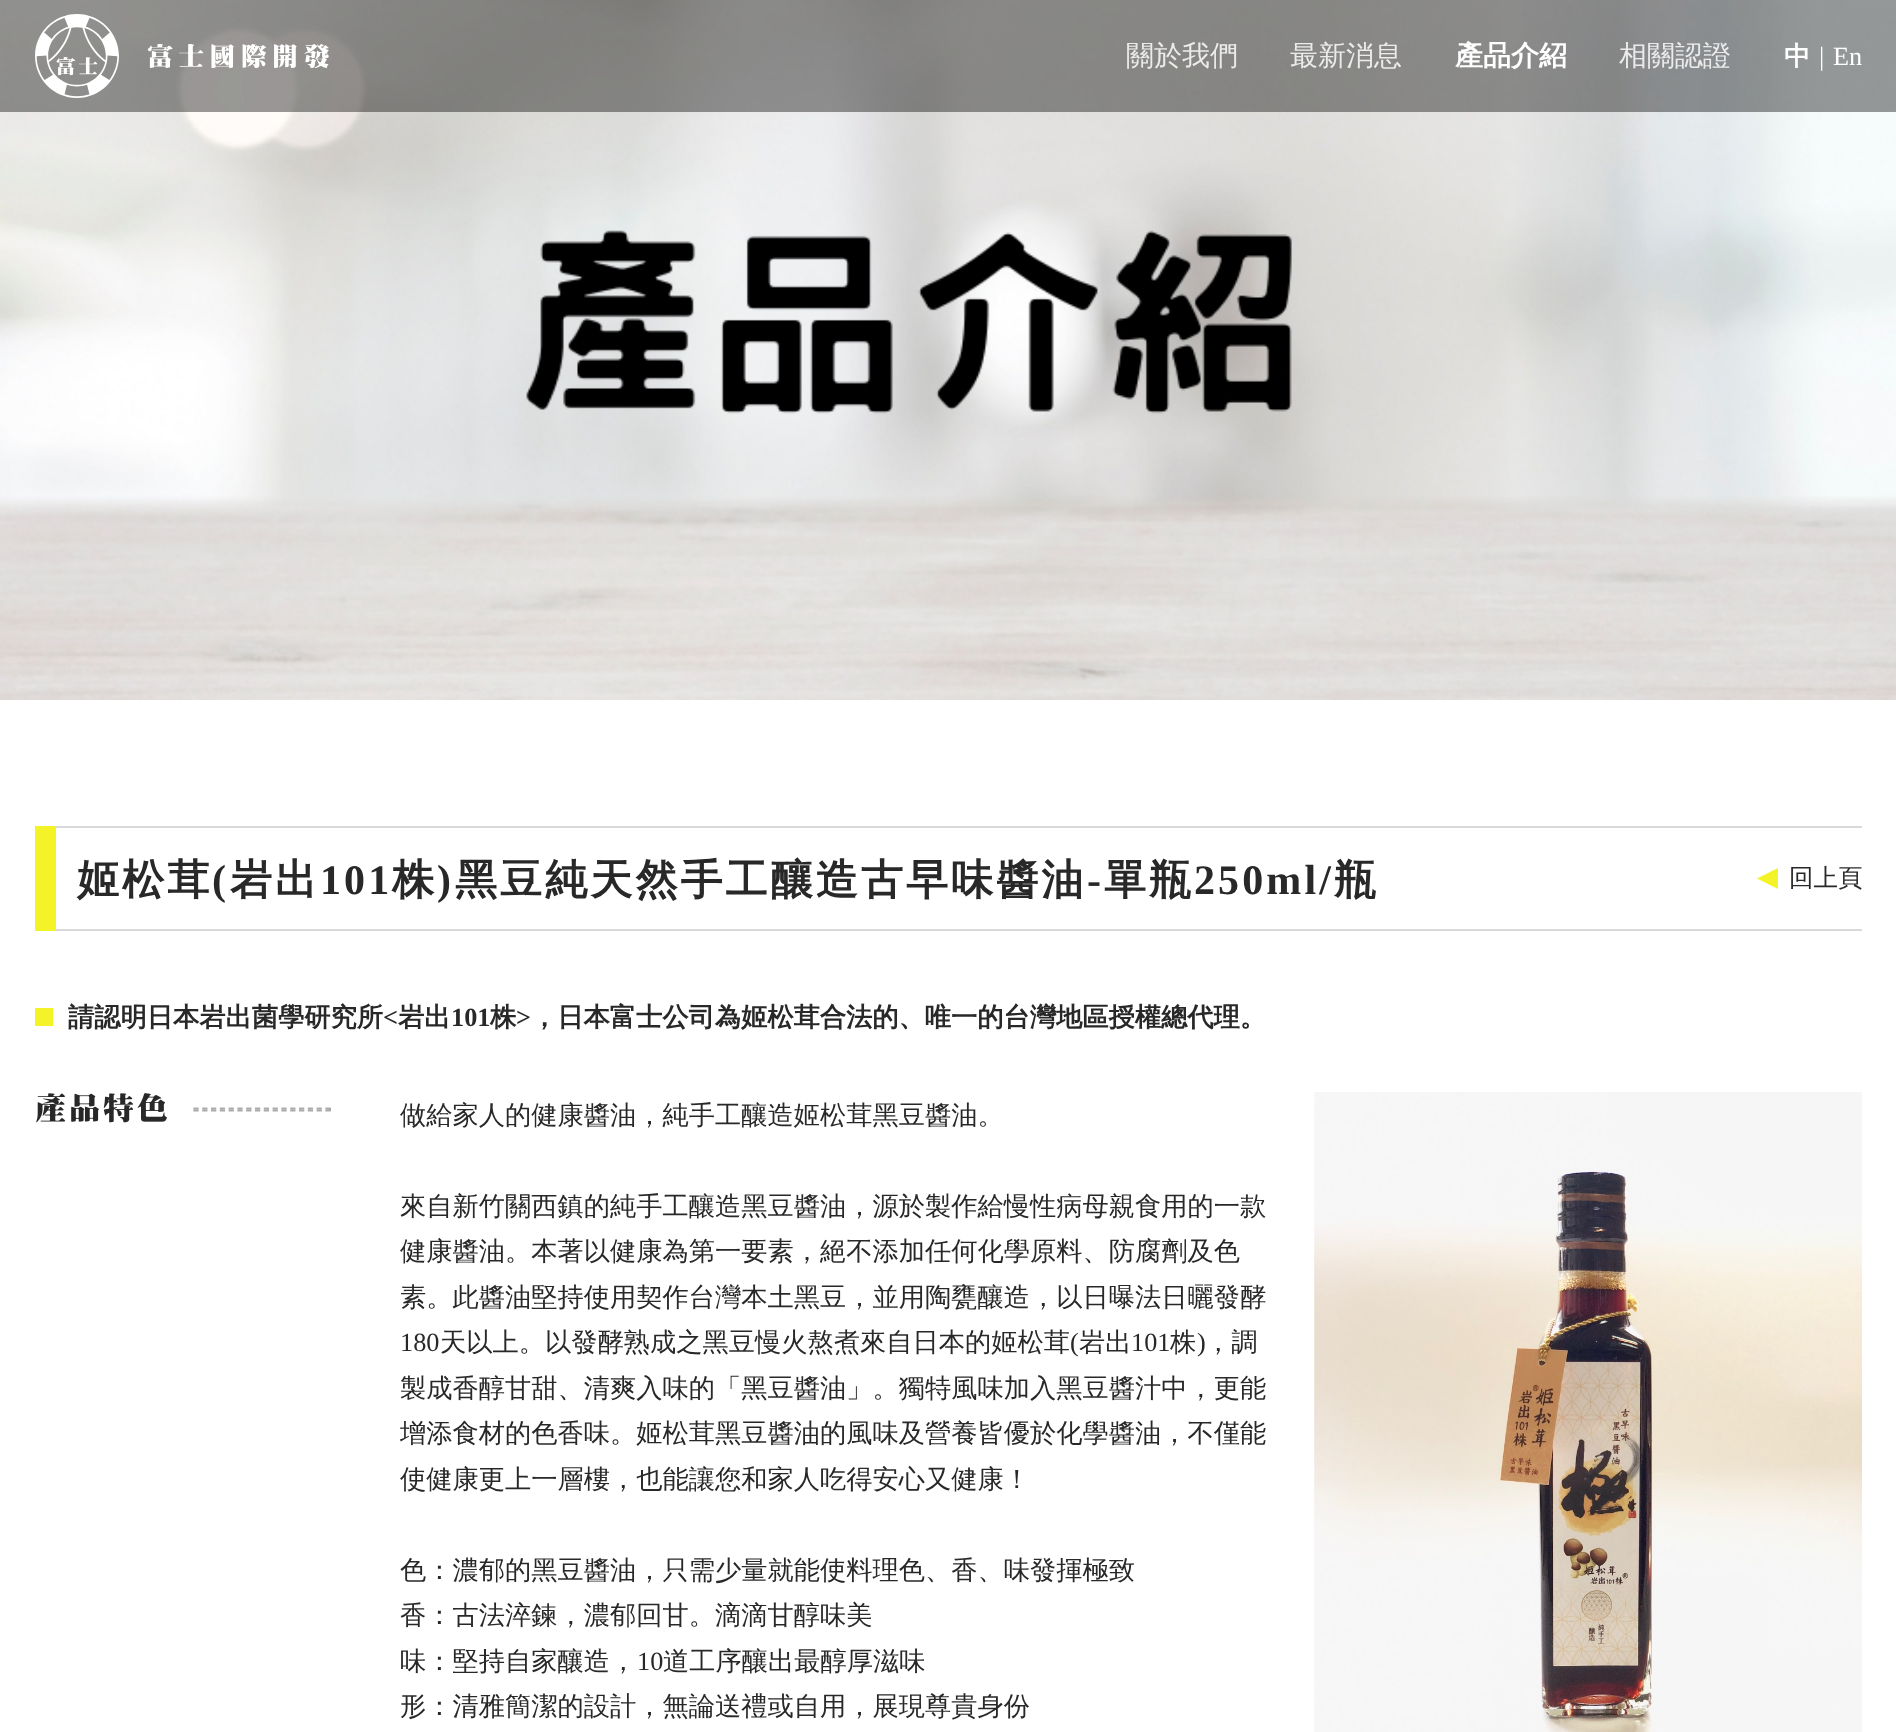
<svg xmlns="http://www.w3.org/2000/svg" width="1896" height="1732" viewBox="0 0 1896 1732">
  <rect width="100%" height="100%" fill="rgb(255,255,255)"/>
  <image x="0" y="0" width="1896" height="700" href="pic1.png"/>
  <rect x="0" y="0" width="1896" height="112" fill="rgba(0,0,0,0.4)"/>
  <image x="35" y="14" width="294" height="84" href="pic2.png"/>
  <g font-family="WenQuanYi Zen Hei" font-size="28" font-weight="500" fill="rgb(235,235,235)">
    <text x="1126" y="65">關於我們</text>
    <text x="1290" y="65">最新消息</text>
  </g>
  <text x="1455" y="65" font-family="WenQuanYi Zen Hei" font-size="28" font-weight="bold" fill="rgb(255,255,255)">產品介紹</text>
  <text x="1619" y="65" font-family="WenQuanYi Zen Hei" font-size="28" font-weight="500" fill="rgb(235,235,235)">相關認證</text>
  <text x="1784" y="65" font-family="WenQuanYi Zen Hei" font-size="26.25" font-weight="bold" fill="rgb(255,255,255)">中</text>
  <g font-family="Liberation Serif" font-size="26.25" fill="rgb(255,255,255)">
    <text x="1819" y="65">|</text>
    <text x="1833" y="65">En</text>
  </g>
  <rect x="35" y="826" width="21" height="105" fill="rgb(244,243,40)"/>
  <rect x="56" y="826" width="1806" height="2" fill="rgb(217,217,217)"/>
  <rect x="56" y="929" width="1806" height="2" fill="rgb(217,217,217)"/>
  <text x="77" y="894" font-family="WenQuanYi Zen Hei" font-size="42" font-weight="bold" letter-spacing="3.1" fill="rgb(40,40,40)">姬松茸</text>
  <text x="212" y="894" font-family="Liberation Serif" font-size="42" font-weight="bold" letter-spacing="3.1" fill="rgb(40,40,40)">(</text>
  <text x="230" y="894" font-family="WenQuanYi Zen Hei" font-size="42" font-weight="bold" letter-spacing="3.1" fill="rgb(40,40,40)">岩出</text>
  <text x="320" y="894" font-family="Liberation Serif" font-size="42" font-weight="bold" letter-spacing="3.1" fill="rgb(40,40,40)">101</text>
  <text x="392" y="894" font-family="WenQuanYi Zen Hei" font-size="42" font-weight="bold" letter-spacing="3.1" fill="rgb(40,40,40)">株</text>
  <text x="437" y="894" font-family="Liberation Serif" font-size="42" font-weight="bold" letter-spacing="3.1" fill="rgb(40,40,40)">)</text>
  <text x="455" y="894" font-family="WenQuanYi Zen Hei" font-size="42" font-weight="bold" letter-spacing="3.1" fill="rgb(40,40,40)">黑豆純天然手工釀造古早味醬油</text>
  <text x="1087" y="894" font-family="Liberation Serif" font-size="42" font-weight="bold" letter-spacing="3.1" fill="rgb(40,40,40)">-</text>
  <text x="1104" y="894" font-family="WenQuanYi Zen Hei" font-size="42" font-weight="bold" letter-spacing="3.1" fill="rgb(40,40,40)">單瓶</text>
  <text x="1194" y="894" font-family="Liberation Serif" font-size="42" font-weight="bold" letter-spacing="3.1" fill="rgb(40,40,40)">250ml/</text>
  <text x="1334" y="894" font-family="WenQuanYi Zen Hei" font-size="42" font-weight="bold" letter-spacing="3.1" fill="rgb(40,40,40)">瓶</text>
  <path d="M1778 889V868L1757 878.5Z" fill="rgb(244,243,40)"/>
  <text x="1789" y="886" font-family="WenQuanYi Zen Hei" font-size="24.5" font-weight="500" fill="rgb(40,40,40)">回上頁</text>
  <rect x="35" y="1008" width="18" height="18" fill="rgb(244,243,40)"/>
  <text x="68" y="1026" font-family="WenQuanYi Zen Hei" font-size="26.25" font-weight="bold" fill="rgb(40,40,40)">請認明日本岩出菌學研究所</text>
  <text x="383" y="1026" font-family="Liberation Serif" font-size="26.25" font-weight="bold" fill="rgb(40,40,40)">&lt;</text>
  <text x="398" y="1026" font-family="WenQuanYi Zen Hei" font-size="26.25" font-weight="bold" fill="rgb(40,40,40)">岩出</text>
  <text x="451" y="1026" font-family="Liberation Serif" font-size="26.25" font-weight="bold" fill="rgb(40,40,40)">101</text>
  <text x="490" y="1026" font-family="WenQuanYi Zen Hei" font-size="26.25" font-weight="bold" fill="rgb(40,40,40)">株</text>
  <text x="516" y="1026" font-family="Liberation Serif" font-size="26.25" font-weight="bold" fill="rgb(40,40,40)">&gt;</text>
  <text x="531" y="1026" font-family="WenQuanYi Zen Hei" font-size="26.25" font-weight="bold" fill="rgb(40,40,40)">，日本富士公司為姬松茸合法的、唯一的台灣地區授權總代理。</text>
  <path d="M35 1108.5H331" fill="none" stroke="rgb(172,172,172)" stroke-width="1.8" stroke-dasharray="5.25 3.55"/>
  <path d="M331 1108V1111L329 1109.5Z" fill="rgba(136,136,136,0.7)"/>
  <path d="M35 1110.5H331" fill="none" stroke="rgba(136,136,136,0.7)" stroke-width="1.8" stroke-dasharray="5.25 3.55"/>
  <rect x="35" y="1107" width="155" height="5" fill="rgb(255,255,255)"/>
  <image x="36" y="1093" width="131" height="30" href="pic3.png"/>
  <g font-family="WenQuanYi Zen Hei" font-size="26.25" font-weight="500" fill="rgb(40,40,40)">
    <text x="400" y="1124">做給家人的健康醬油，純手工釀造姬松茸黑豆醬油。</text>
    <text>
      <tspan x="400" y="1215">來自新竹關西鎮的純手工釀造黑豆醬油，源於製作給慢性病母親食用的一款</tspan>
      <tspan x="400" y="1260">健康醬油。本著以健康為第一要素，絕不添加任何化學原料、防腐劑及色</tspan>
      <tspan x="400" y="1306">素。此醬油堅持使用契作台灣本土黑豆，並用陶甕釀造，以日曝法日曬發酵</tspan>
    </text>
  </g>
  <text x="400" y="1351" font-family="Liberation Serif" font-size="26.25" fill="rgb(40,40,40)">180</text>
  <text x="440" y="1351" font-family="WenQuanYi Zen Hei" font-size="26.25" font-weight="500" fill="rgb(40,40,40)">天以上。以發酵熟成之黑豆慢火熬煮來自日本的姬松茸</text>
  <text x="1070" y="1351" font-family="Liberation Serif" font-size="26.25" fill="rgb(40,40,40)">(</text>
  <text x="1079" y="1351" font-family="WenQuanYi Zen Hei" font-size="26.25" font-weight="500" fill="rgb(40,40,40)">岩出</text>
  <text x="1131" y="1351" font-family="Liberation Serif" font-size="26.25" fill="rgb(40,40,40)">101</text>
  <text x="1170" y="1351" font-family="WenQuanYi Zen Hei" font-size="26.25" font-weight="500" fill="rgb(40,40,40)">株</text>
  <text x="1197" y="1351" font-family="Liberation Serif" font-size="26.25" fill="rgb(40,40,40)">)</text>
  <g font-family="WenQuanYi Zen Hei" font-size="26.25" font-weight="500" fill="rgb(40,40,40)">
    <text x="1205" y="1351">，調</text>
    <text>
      <tspan x="400" y="1397">製成香醇甘甜、清爽入味的「黑豆醬油」。獨特風味加入黑豆醬汁中，更能</tspan>
      <tspan x="400" y="1442">增添食材的色香味。姬松茸黑豆醬油的風味及營養皆優於化學醬油，不僅能</tspan>
      <tspan x="400" y="1488">使健康更上一層樓，也能讓您和家人吃得安心又健康！</tspan>
    </text>
    <text>
      <tspan x="400" y="1579">色：濃郁的黑豆醬油，只需少量就能使料理色、香、味發揮極致</tspan>
      <tspan x="400" y="1624">香：古法淬鍊，濃郁回甘。滴滴甘醇味美</tspan>
      <tspan x="400" y="1670">味：堅持自家釀造，</tspan>
    </text>
  </g>
  <text x="637" y="1670" font-family="Liberation Serif" font-size="26.25" fill="rgb(40,40,40)">10</text>
  <g font-family="WenQuanYi Zen Hei" font-size="26.25" font-weight="500" fill="rgb(40,40,40)">
    <text x="663" y="1670">道工序釀出最醇厚滋味</text>
    <text x="400" y="1715">形：清雅簡潔的設計，無論送禮或自用，展現尊貴身份</text>
  </g>
  <image x="1314" y="1092" width="548" height="640" href="pic4.png"/>
</svg>
